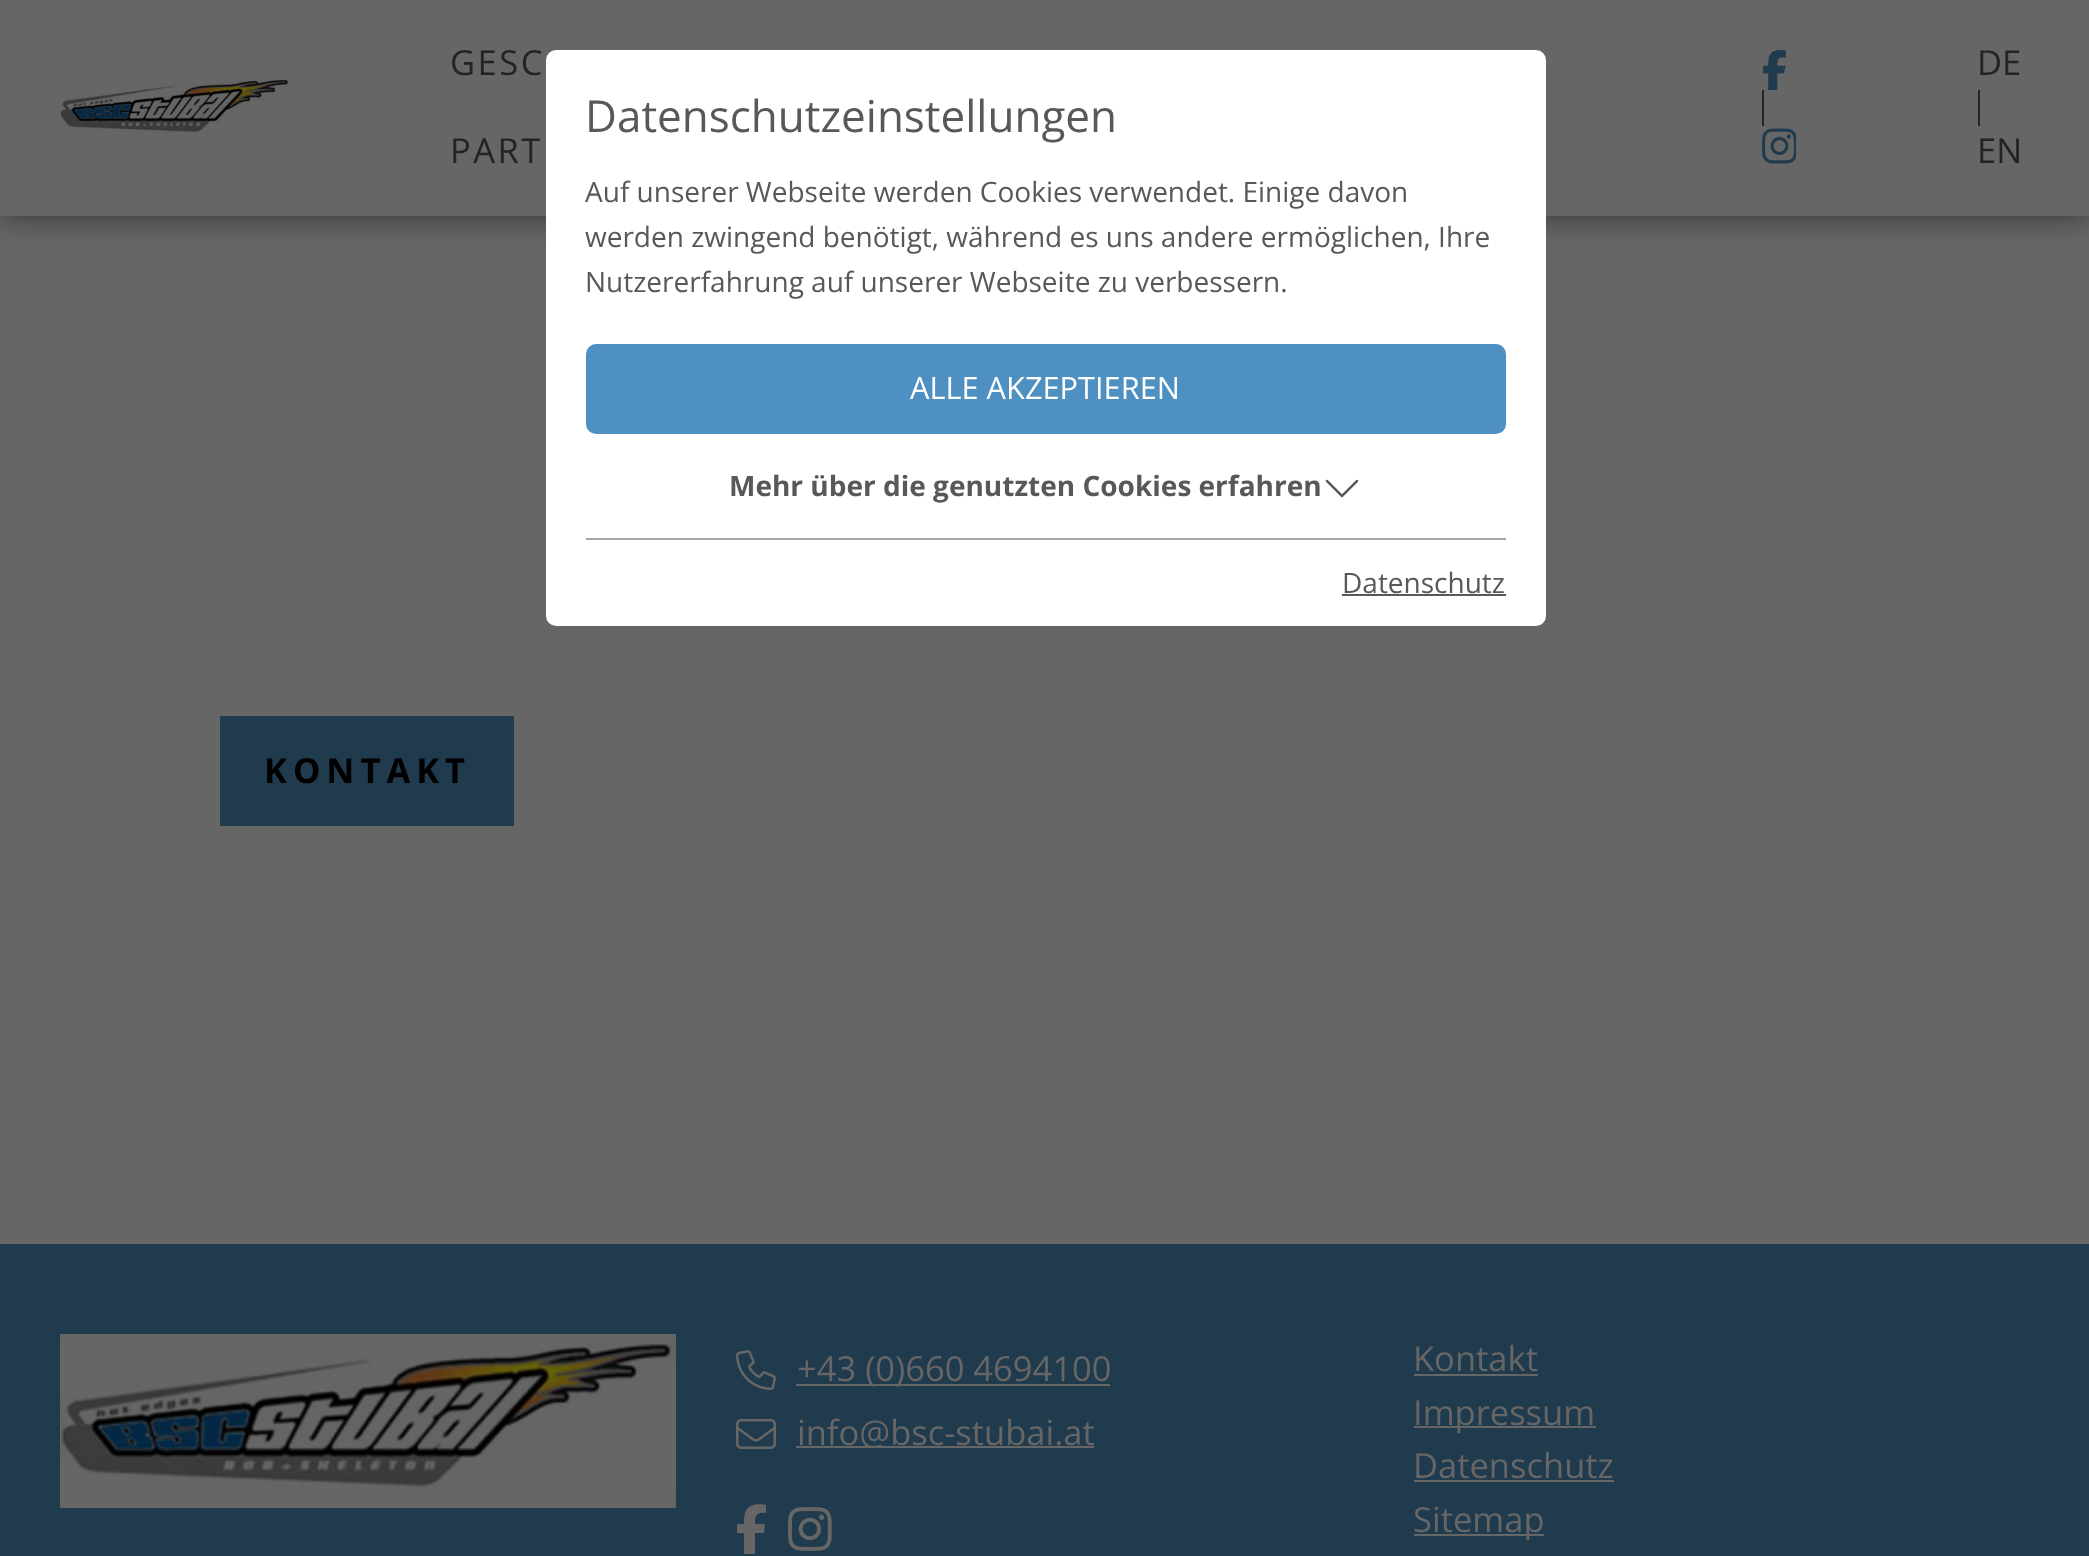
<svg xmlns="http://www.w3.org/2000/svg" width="2089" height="1556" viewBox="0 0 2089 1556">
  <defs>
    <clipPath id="clip1"><rect x="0" y="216" width="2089" height="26"/></clipPath>
  </defs>
  <rect width="100%" height="100%" fill="rgb(102,102,102)"/>
  <g clip-path="url(#clip1)">
    <rect x="0" y="0" width="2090" height="216" fill="rgba(0,0,0,0.5)" filter="blur(15px)"/>
  </g>
  <image x="60" y="76" width="230" height="57" href="pic1.png"/>
  <g font-family="Open Sans" font-size="34.5" letter-spacing="2.5" fill="rgb(35,35,35)">
    <text x="450" y="75">GESC</text>
    <text x="450" y="163">PART</text>
  </g>
  <image x="1763" y="50" width="23" height="40" href="pic2.png"/>
  <rect x="1762" y="90" width="2" height="36" fill="rgb(35,35,35)"/>
  <image x="1762" y="128" width="34" height="36" href="pic3.png"/>
  <text x="1977" y="75" font-family="Open Sans" font-size="34.5" fill="rgb(35,35,35)">DE</text>
  <rect x="1978" y="90" width="2" height="36" fill="rgb(35,35,35)"/>
  <text x="1977" y="163" font-family="Open Sans" font-size="34.5" fill="rgb(35,35,35)">EN</text>
  <rect x="220" y="716" width="294" height="110" fill="rgb(32,58,78)"/>
  <text x="264" y="783" font-family="Open Sans" font-size="34.5" font-weight="bold" letter-spacing="6" fill="rgb(0,0,0)">KONTAKT</text>
  <rect x="0" y="1244" width="2089" height="312" fill="rgb(32,58,78)"/>
  <image x="60" y="1334" width="616" height="174" href="pic4.png"/>
  <image x="736" y="1350" width="40" height="40" href="pic5.png"/>
  <rect x="796" y="1384" width="314" height="2" fill="rgb(102,102,102)"/>
  <text x="797" y="1381" font-family="Open Sans" font-size="34.5" fill="rgb(102,102,102)">+43 (0)660 4694100</text>
  <image x="736" y="1419" width="40" height="30" href="pic6.png"/>
  <rect x="796" y="1446" width="298" height="2" fill="rgb(102,102,102)"/>
  <text x="797" y="1445" font-family="Open Sans" font-size="34.5" fill="rgb(102,102,102)">info@bsc-stubai.at</text>
  <path d="M744 1533V1554H755V1533H764L765 1524H755C755 1515 757 1512 766 1513V1505C758 1503 747 1504 745 1513C744 1516 744 1520 744 1524H737V1533Z" fill="rgb(102,102,102)"/>
  <image x="788" y="1507" width="44" height="44" href="pic7.png"/>
  <text x="1413" y="1371" font-family="Open Sans" font-size="34.5" fill="rgb(102,102,102)">Kontakt</text>
  <rect x="1414" y="1374" width="124" height="2" fill="rgb(102,102,102)"/>
  <rect x="1414" y="1426" width="182" height="2" fill="rgb(102,102,102)"/>
  <g font-family="Open Sans" font-size="34.5" fill="rgb(102,102,102)">
    <text>
      <tspan x="1413" y="1425">Impressum</tspan>
      <tspan x="1413" y="1478">Datenschutz</tspan>
    </text>
  </g>
  <rect x="1414" y="1480" width="200" height="2" fill="rgb(102,102,102)"/>
  <rect x="1414" y="1534" width="130" height="2" fill="rgb(102,102,102)"/>
  <text x="1413" y="1532" font-family="Open Sans" font-size="34.5" fill="rgb(102,102,102)">Sitemap</text>
  <rect x="546" y="50" width="1000" height="576" rx="10" fill="rgb(255,255,255)"/>
  <text x="585" y="132" font-family="Open Sans" font-size="44" fill="rgb(88,88,88)">Datenschutzeinstellungen</text>
  <g font-family="Open Sans" font-size="28" fill="rgb(88,88,88)">
    <text>
      <tspan x="585" y="202">Auf unserer Webseite werden Cookies verwendet. Einige davon</tspan>
      <tspan x="585" y="247">werden zwingend benötigt, während es uns andere ermöglichen, Ihre</tspan>
      <tspan x="585" y="292">Nutzererfahrung auf unserer Webseite zu verbessern.</tspan>
    </text>
  </g>
  <rect x="586" y="344" width="920" height="90" rx="10" fill="rgb(79,144,194)"/>
  <text x="910" y="399" font-family="Open Sans" font-size="30.75" fill="rgb(255,255,255)">ALLE AKZEPTIEREN</text>
  <text x="729" y="496" font-family="Open Sans" font-size="28" font-weight="bold" fill="rgb(88,88,88)">Mehr über die genutzten Cookies erfahren</text>
  <image x="1325" y="479" width="34" height="19" href="pic8.png"/>
  <rect x="586" y="538" width="920" height="2" fill="rgb(165,165,165)"/>
  <text x="1342" y="593" font-family="Open Sans" font-size="28" fill="rgb(88,88,88)">Datenschutz</text>
  <rect x="1342" y="594" width="164" height="2" fill="rgb(88,88,88)"/>
</svg>
